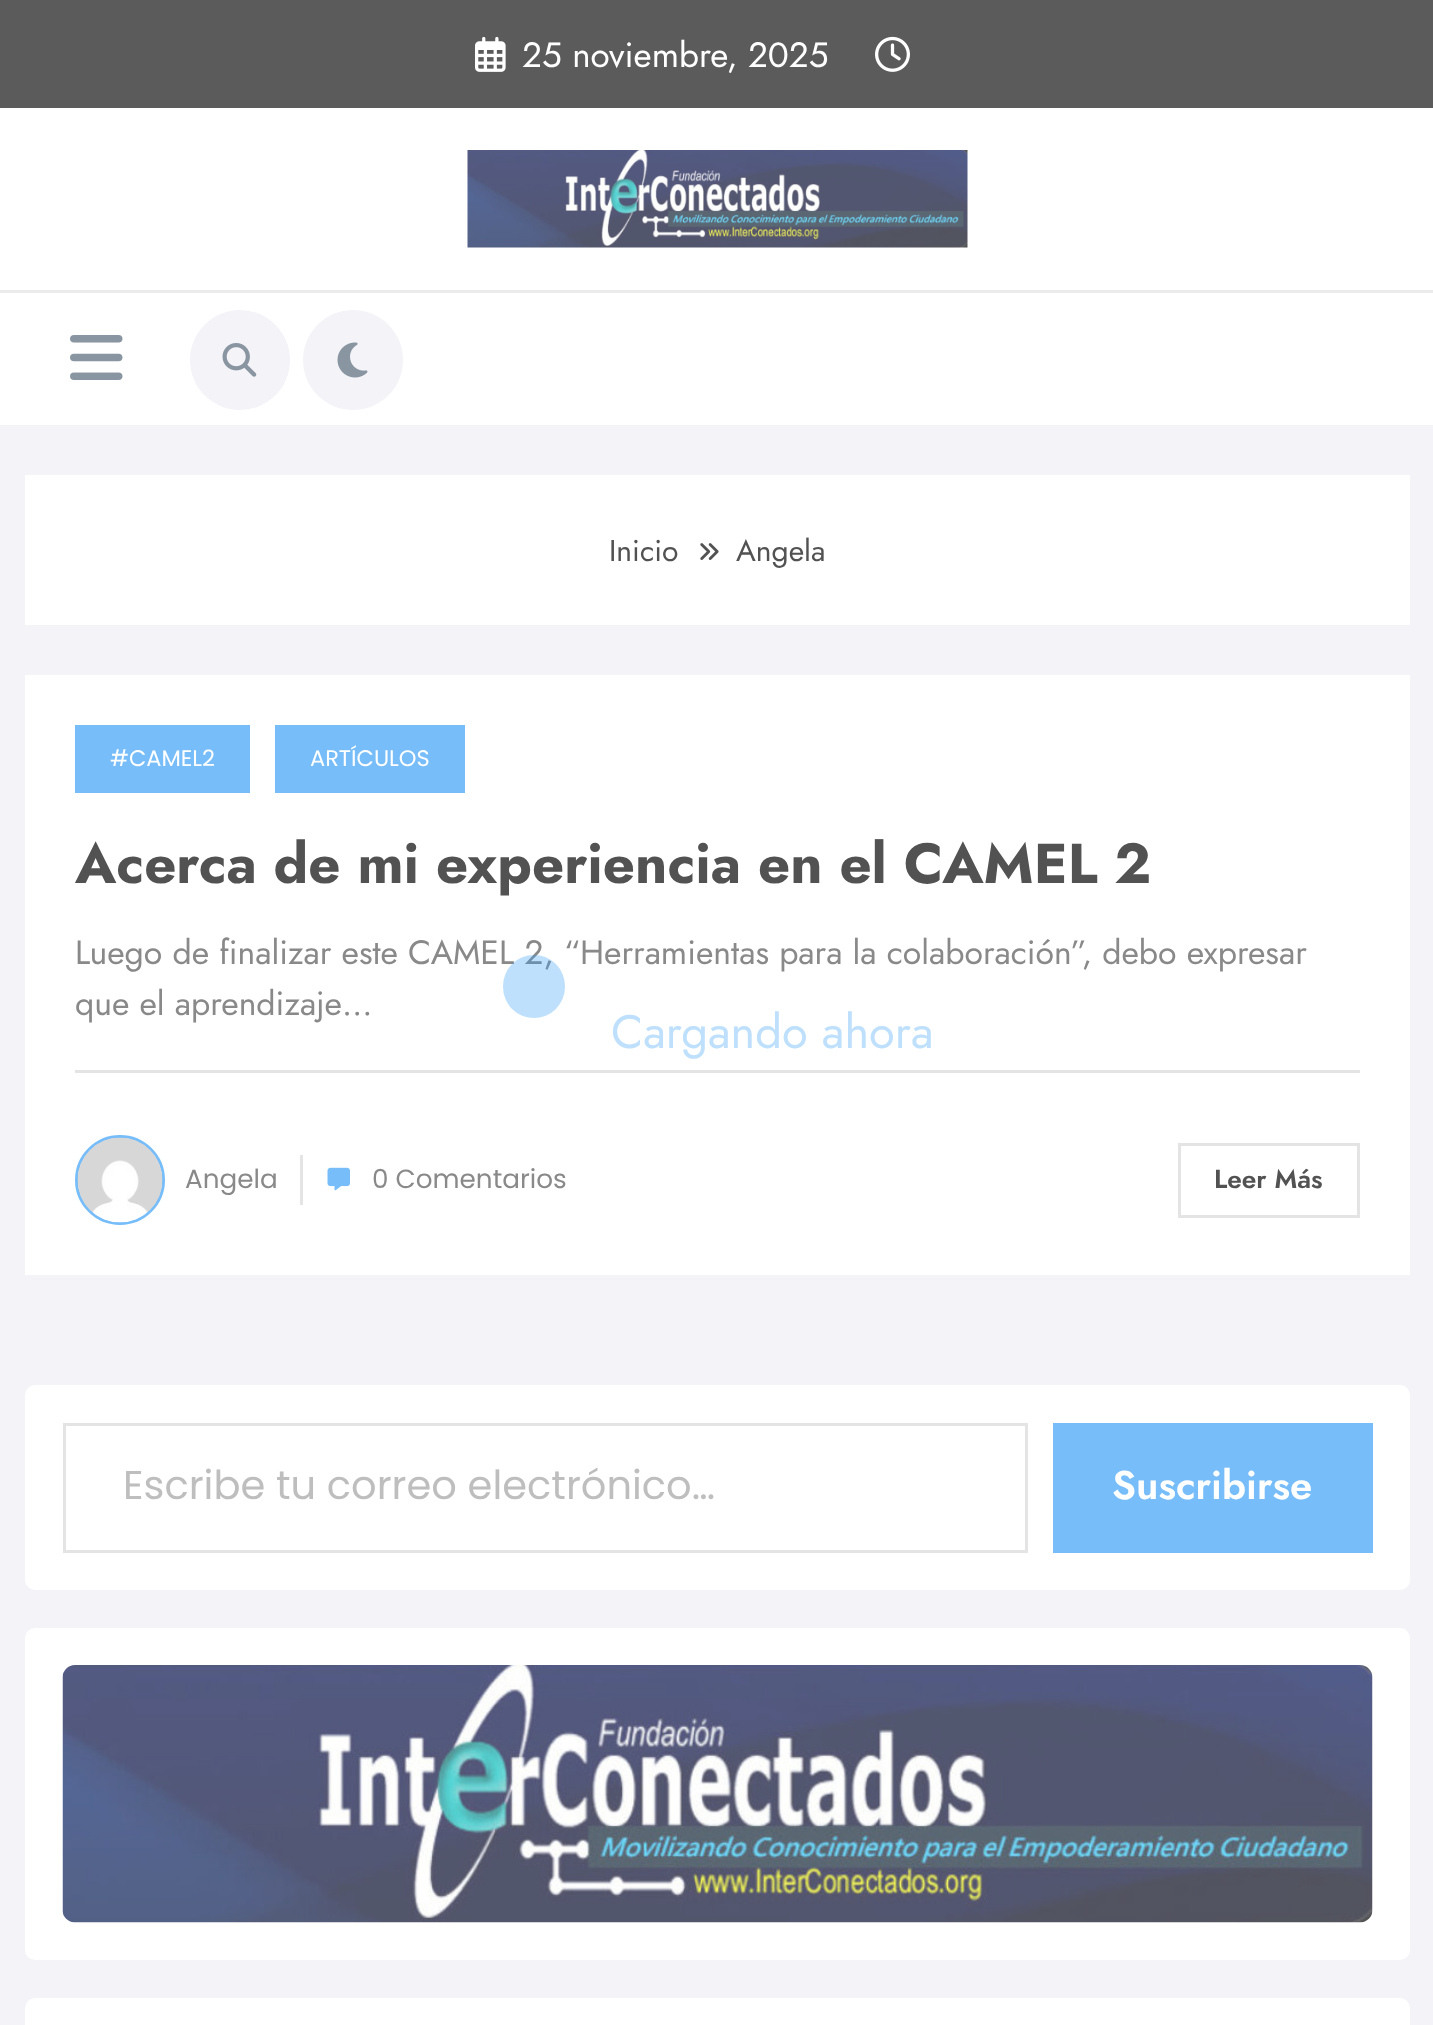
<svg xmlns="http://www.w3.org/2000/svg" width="1433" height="2025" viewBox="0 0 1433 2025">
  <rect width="100%" height="100%" fill="rgb(243,243,248)"/>
  <rect x="0" y="0" width="1433" height="108" fill="rgb(91,91,91)"/>
  <image x="475" y="36" width="31" height="36" href="pic1.png"/>
  <text x="522" y="67" font-family="Jost" font-size="35" fill="rgb(255,255,255)">25 noviembre, 2025</text>
  <image x="875" y="36" width="35" height="36" href="pic2.png"/>
  <rect x="0" y="108" width="1433" height="317" fill="rgb(255,255,255)"/>
  <image x="467" y="150" width="501" height="98" href="pic3.png"/>
  <rect x="0" y="290" width="1433" height="3" fill="rgb(235,235,235)"/>
  <image x="70" y="335" width="53" height="45" href="pic4.png"/>
  <circle cx="240" cy="360" r="50" fill="rgb(243,243,248)"/>
  <image x="222" y="343" width="35" height="34" href="pic5.png"/>
  <circle cx="353" cy="360" r="50" fill="rgb(243,243,248)"/>
  <image x="337" y="342" width="31" height="36" href="pic6.png"/>
  <rect x="25" y="475" width="1385" height="150" fill="rgb(255,255,255)"/>
  <text x="609" y="561" font-family="Jost" font-size="30" fill="rgb(82,82,82)">Inicio</text>
  <image x="700" y="543" width="19" height="17" href="pic7.png"/>
  <text x="736" y="561" font-family="Jost" font-size="30" fill="rgb(82,82,82)">Angela</text>
  <rect x="25" y="675" width="1385" height="600" fill="rgb(255,255,255)"/>
  <rect x="75" y="725" width="175" height="68" fill="rgb(118,189,249)"/>
  <text x="110" y="766" font-family="Poppins" font-size="22.5" fill="rgb(255,255,255)">#CAMEL2</text>
  <rect x="275" y="725" width="190" height="68" fill="rgb(118,189,249)"/>
  <text x="310" y="766" font-family="Poppins" font-size="22.5" fill="rgb(255,255,255)">ARTÍCULOS</text>
  <text x="75" y="883" font-family="Jost" font-size="56.25" font-weight="bold" fill="rgb(82,82,82)">Acerca de mi experiencia en el CAMEL 2</text>
  <rect x="75" y="1070" width="1285" height="3" fill="rgb(228,228,228)"/>
  <g font-family="Jost" font-size="33.75" fill="rgb(137,137,137)">
    <text>
      <tspan x="75" y="964">Luego de finalizar este CAMEL 2, “Herramientas para la colaboración”, debo expresar</tspan>
      <tspan x="75" y="1015">que el aprendizaje…</tspan>
    </text>
  </g>
  <circle cx="120" cy="1180" r="43.5" fill="none" stroke="rgb(118,189,249)" stroke-width="3"/>
  <image x="77" y="1137" width="86" height="86" href="pic8.png"/>
  <text x="185" y="1188" font-family="Poppins" font-size="26.25" fill="rgb(137,137,137)">Angela</text>
  <rect x="300" y="1155" width="3" height="50" fill="rgb(228,228,228)"/>
  <image x="327" y="1167" width="23" height="24" href="pic9.png"/>
  <text x="372" y="1188" font-family="Poppins" font-size="26.25" fill="rgb(137,137,137)">0 Comentarios</text>
  <rect x="1179.5" y="1144.5" width="179" height="72" fill="none" stroke="rgb(228,228,228)" stroke-width="3"/>
  <text x="1214" y="1188" font-family="Jost" font-size="26.25" font-weight="600" fill="rgb(82,82,82)">Leer Más</text>
  <rect x="25" y="1385" width="1385" height="205" rx="10" fill="rgb(255,255,255)"/>
  <rect x="64.5" y="1424.5" width="962" height="127" fill="none" stroke="rgb(228,228,228)" stroke-width="3"/>
  <text x="123" y="1499" font-family="Poppins" font-size="40" fill="rgb(190,190,190)">Escribe tu correo electrónico…</text>
  <rect x="1053" y="1423" width="320" height="130" fill="rgb(118,189,249)"/>
  <text x="1112" y="1499" font-family="Jost" font-size="40" font-weight="600" fill="rgb(255,255,255)">Suscribirse</text>
  <rect x="25" y="1628" width="1385" height="332" rx="10" fill="rgb(255,255,255)"/>
  <image x="62" y="1665" width="1311" height="258" href="pic10.png"/>
  <rect x="25" y="1998" width="1385" height="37" rx="10" fill="rgb(255,255,255)"/>
  <rect x="503" y="955" width="62" height="63" rx="31" fill="rgba(54,158,246,0.32)"/>
  <text x="611" y="1048" font-family="Jost" font-size="47" fill="rgb(190,224,252)">Cargando ahora</text>
</svg>
